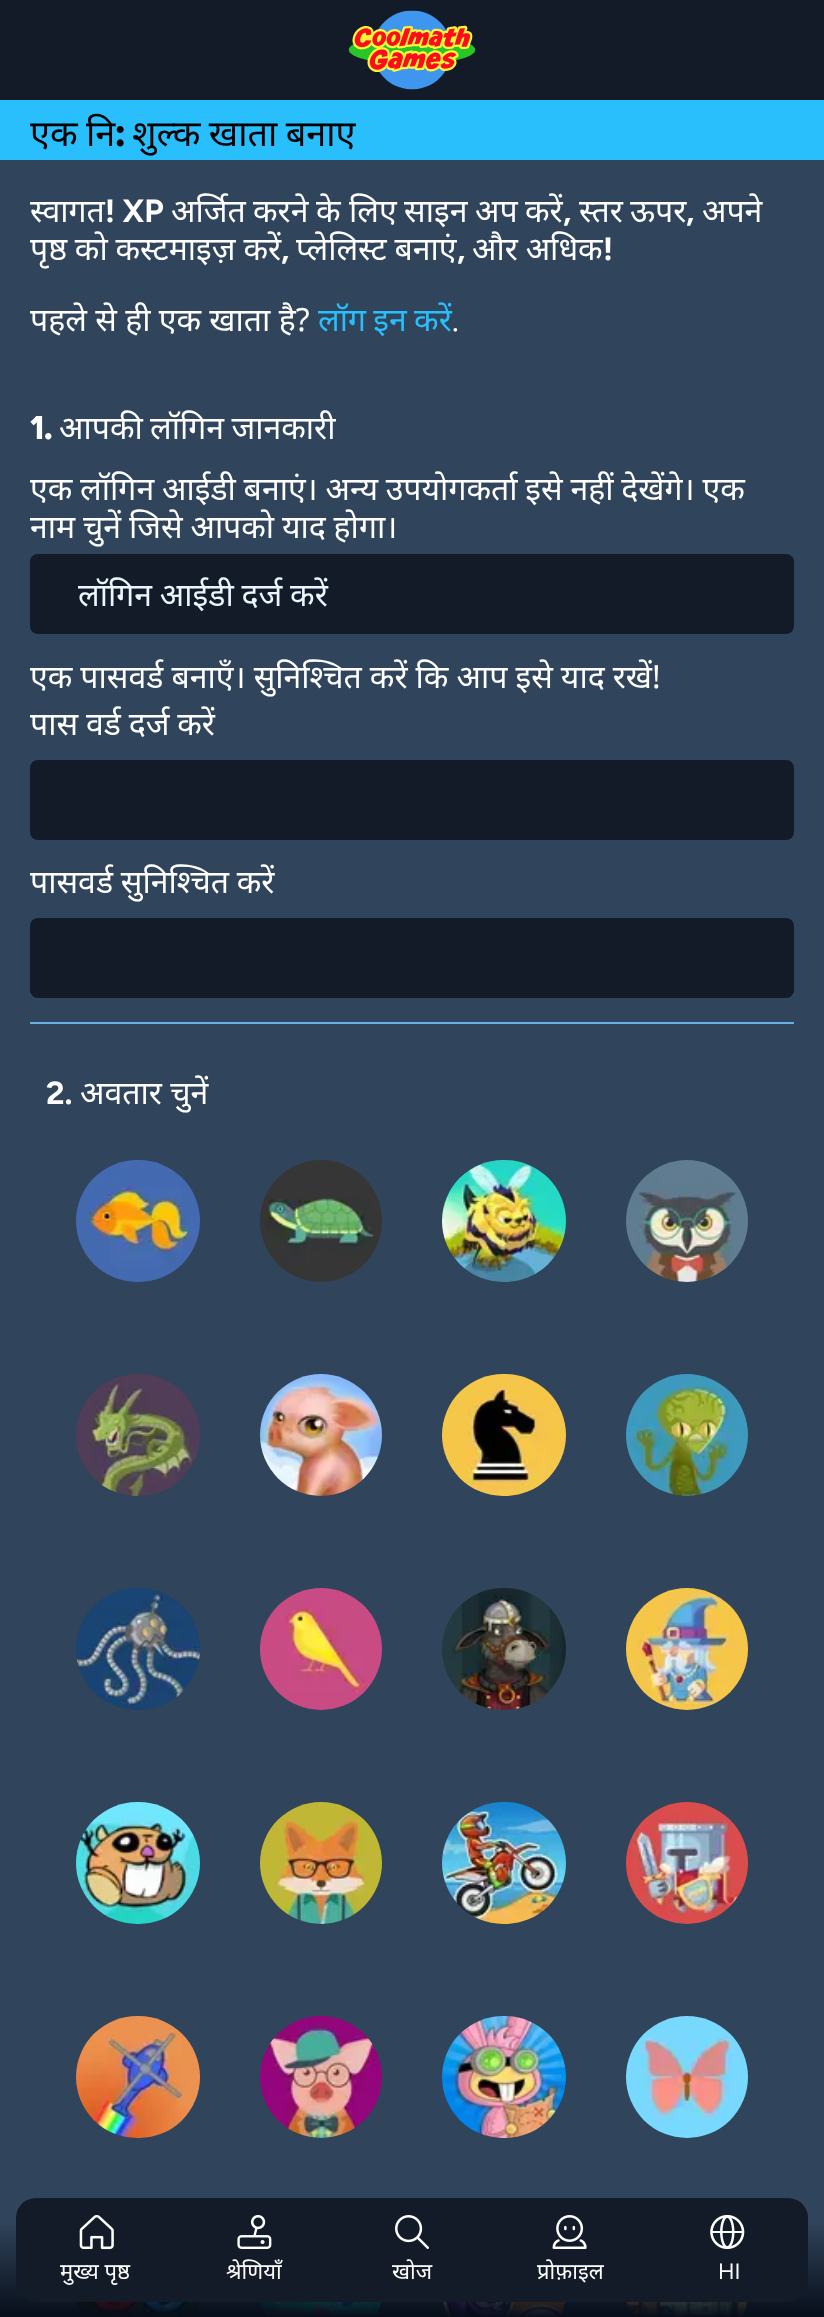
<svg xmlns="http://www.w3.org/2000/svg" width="824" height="2317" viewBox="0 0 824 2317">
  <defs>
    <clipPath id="clip1"><rect x="78" y="572" width="668" height="44"/></clipPath>
    <linearGradient id="g1" gradientUnits="userSpaceOnUse" x1="412" y1="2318" x2="412" y2="2190"><stop offset="0" stop-color="rgb(6,13,25)"/><stop offset="0.76" stop-color="rgb(6,13,25)" stop-opacity="0"/></linearGradient>
  </defs>
  <rect width="100%" height="100%" fill="rgb(19,27,41)"/>
  <rect x="0" y="160" width="824" height="2157" fill="rgb(48,68,91)"/>
  <rect x="0" y="100" width="824" height="60" fill="rgb(41,191,253)"/>
  <text x="30" y="146" word-spacing="-1" font-family="Noto Sans" font-size="36" fill="rgb(0,0,0)">एक नि</text>
  <text x="115" y="146" font-family="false" font-size="36" font-weight="bold" fill="rgb(0,0,0)">:</text>
  <text x="132" y="146" word-spacing="-1" font-family="Noto Sans" font-size="36" fill="rgb(0,0,0)">शुल्क खाता बनाए</text>
  <text x="30" y="222" font-family="Noto Sans" font-size="32" fill="rgb(255,255,255)">स्वागत</text>
  <text x="105" y="222" font-family="Figtree" font-size="32" font-weight="bold" fill="rgb(255,255,255)">! XP</text>
  <g font-family="Noto Sans" font-size="32" fill="rgb(255,255,255)">
    <text x="171" y="222">अर्जित</text>
    <text x="253" y="222">करने</text>
    <text x="316" y="222">के</text>
    <text x="349" y="222">लिए</text>
    <text x="404" y="222">साइन</text>
    <text x="475" y="222">अप</text>
    <text x="525" y="222">करें</text>
  </g>
  <text x="563" y="222" font-family="Figtree" font-size="32" font-weight="bold" fill="rgb(255,255,255)">,</text>
  <g font-family="Noto Sans" font-size="32" fill="rgb(255,255,255)">
    <text x="579" y="222">स्तर</text>
    <text x="630" y="222">ऊपर</text>
  </g>
  <text x="686" y="222" font-family="Figtree" font-size="32" font-weight="bold" fill="rgb(255,255,255)">,</text>
  <g font-family="Noto Sans" font-size="32" fill="rgb(255,255,255)">
    <text x="702" y="222">अपने</text>
    <text x="30" y="260" word-spacing="-0.5">पृष्ठ को कस्टमाइज़ करें</text>
  </g>
  <text x="281" y="260" font-family="Figtree" font-size="32" font-weight="bold" fill="rgb(255,255,255)">,</text>
  <text x="296" y="260" word-spacing="-0.5" font-family="Noto Sans" font-size="32" fill="rgb(255,255,255)">प्लेलिस्ट बनाएं</text>
  <text x="457" y="260" font-family="Figtree" font-size="32" font-weight="bold" fill="rgb(255,255,255)">,</text>
  <text x="472" y="260" word-spacing="-0.5" font-family="Noto Sans" font-size="32" fill="rgb(255,255,255)">और अधिक</text>
  <text x="603" y="260" font-family="Figtree" font-size="32" font-weight="bold" fill="rgb(255,255,255)">!</text>
  <text x="30" y="331" font-family="Noto Sans" font-size="32" fill="rgb(255,255,255)">पहले से ही एक खाता है?</text>
  <text x="318" y="331" word-spacing="-1" font-family="Noto Sans" font-size="32" fill="rgb(41,191,253)">लॉग इन करें</text>
  <text x="452" y="331" font-family="Figtree" font-size="32" fill="rgb(255,255,255)">.</text>
  <text x="30" y="439" font-family="false" font-size="32" font-weight="bold" fill="rgb(255,255,255)">1.</text>
  <g font-family="Noto Sans" font-size="32" fill="rgb(255,255,255)">
    <text x="59" y="439" word-spacing="-1">आपकी लॉगिन जानकारी</text>
    <text>
      <tspan x="30" y="500" word-spacing="-0.5">एक लॉगिन आईडी बनाएं। अन्य उपयोगकर्ता इसे नहीं देखेंगे। एक</tspan>
      <tspan x="30" y="538" word-spacing="-0.5">नाम चुनें जिसे आपको याद होगा।</tspan>
    </text>
  </g>
  <rect x="30" y="554" width="764" height="80" rx="8" fill="rgb(19,27,41)"/>
  <g clip-path="url(#clip1)">
    <text x="78" y="606" word-spacing="-0.5" font-family="Noto Sans" font-size="32" fill="rgb(233,246,254)">लॉगिन आईडी दर्ज करें</text>
  </g>
  <g font-family="Noto Sans" font-size="32" fill="rgb(255,255,255)">
    <text>
      <tspan x="30" y="688" word-spacing="-0.25">एक पासवर्ड बनाएँ। सुनिश्चित करें कि आप इसे याद रखें!</tspan>
      <tspan x="30" y="735" word-spacing="-0.5">पास वर्ड दर्ज करें</tspan>
    </text>
  </g>
  <rect x="30" y="760" width="764" height="80" rx="8" fill="rgb(19,27,41)"/>
  <text x="30" y="893" word-spacing="-0.5" font-family="Noto Sans" font-size="32" fill="rgb(255,255,255)">पासवर्ड सुनिश्चित करें</text>
  <rect x="30" y="918" width="764" height="80" rx="8" fill="rgb(19,27,41)"/>
  <rect x="30" y="1022" width="764" height="2" fill="rgb(103,177,231)"/>
  <text x="46" y="1104" font-family="Figtree" font-size="32" font-weight="bold" fill="rgb(255,255,255)">2.</text>
  <text x="80" y="1104" font-family="Noto Sans" font-size="32" fill="rgb(255,255,255)">अवतार चुनें</text>
  <image x="76" y="1160" width="124" height="122" href="pic1.png"/>
  <image x="260" y="1160" width="122" height="122" href="pic2.png"/>
  <image x="442" y="1160" width="124" height="122" href="pic3.png"/>
  <image x="626" y="1160" width="122" height="122" href="pic4.png"/>
  <image x="76" y="1374" width="124" height="122" href="pic5.png"/>
  <image x="260" y="1374" width="122" height="122" href="pic6.png"/>
  <image x="442" y="1374" width="124" height="122" href="pic7.png"/>
  <image x="626" y="1374" width="122" height="122" href="pic8.png"/>
  <image x="76" y="1588" width="124" height="122" href="pic9.png"/>
  <image x="260" y="1588" width="122" height="122" href="pic10.png"/>
  <image x="442" y="1588" width="124" height="122" href="pic11.png"/>
  <image x="626" y="1588" width="122" height="122" href="pic12.png"/>
  <image x="76" y="1802" width="124" height="122" href="pic13.png"/>
  <image x="260" y="1802" width="122" height="122" href="pic14.png"/>
  <image x="442" y="1802" width="124" height="122" href="pic15.png"/>
  <image x="626" y="1802" width="122" height="122" href="pic16.png"/>
  <image x="76" y="2016" width="124" height="122" href="pic17.png"/>
  <image x="260" y="2016" width="122" height="122" href="pic18.png"/>
  <image x="442" y="2016" width="124" height="122" href="pic19.png"/>
  <image x="626" y="2016" width="122" height="122" href="pic20.png"/>
  <image x="77" y="2302" width="122" height="15" href="pic21.png"/>
  <image x="261" y="2302" width="120" height="15" href="pic22.png"/>
  <image x="443" y="2302" width="122" height="15" href="pic23.png"/>
  <image x="627" y="2302" width="120" height="15" href="pic24.png"/>
  <image x="348" y="10" width="128" height="80" href="pic25.png"/>
  <rect x="0" y="2225" width="824" height="92" fill="url(#g1)"/>
  <rect x="16" y="2198" width="792" height="104" rx="20" fill="rgb(19,27,41)"/>
  <image x="79" y="2215" width="35" height="35" href="pic26.png"/>
  <text x="60" y="2279" font-family="Noto Sans" font-size="22" fill="rgb(255,255,255)">मुख्य पृष्ठ</text>
  <image x="237" y="2215" width="35" height="34" href="pic27.png"/>
  <text x="226" y="2279" font-family="Noto Sans" font-size="22" fill="rgb(255,255,255)">श्रेणियाँ</text>
  <image x="395" y="2215" width="34" height="34" href="pic28.png"/>
  <text x="392" y="2279" font-family="Noto Sans" font-size="22" fill="rgb(255,255,255)">खोज</text>
  <image x="552" y="2215" width="35" height="34" href="pic29.png"/>
  <text x="537" y="2279" font-family="Noto Sans" font-size="22" fill="rgb(255,255,255)">प्रोफ़ाइल</text>
  <image x="710" y="2214" width="35" height="36" href="pic30.png"/>
  <text x="718" y="2279" font-family="Figtree" font-size="22" fill="rgb(255,255,255)">HI</text>
</svg>
